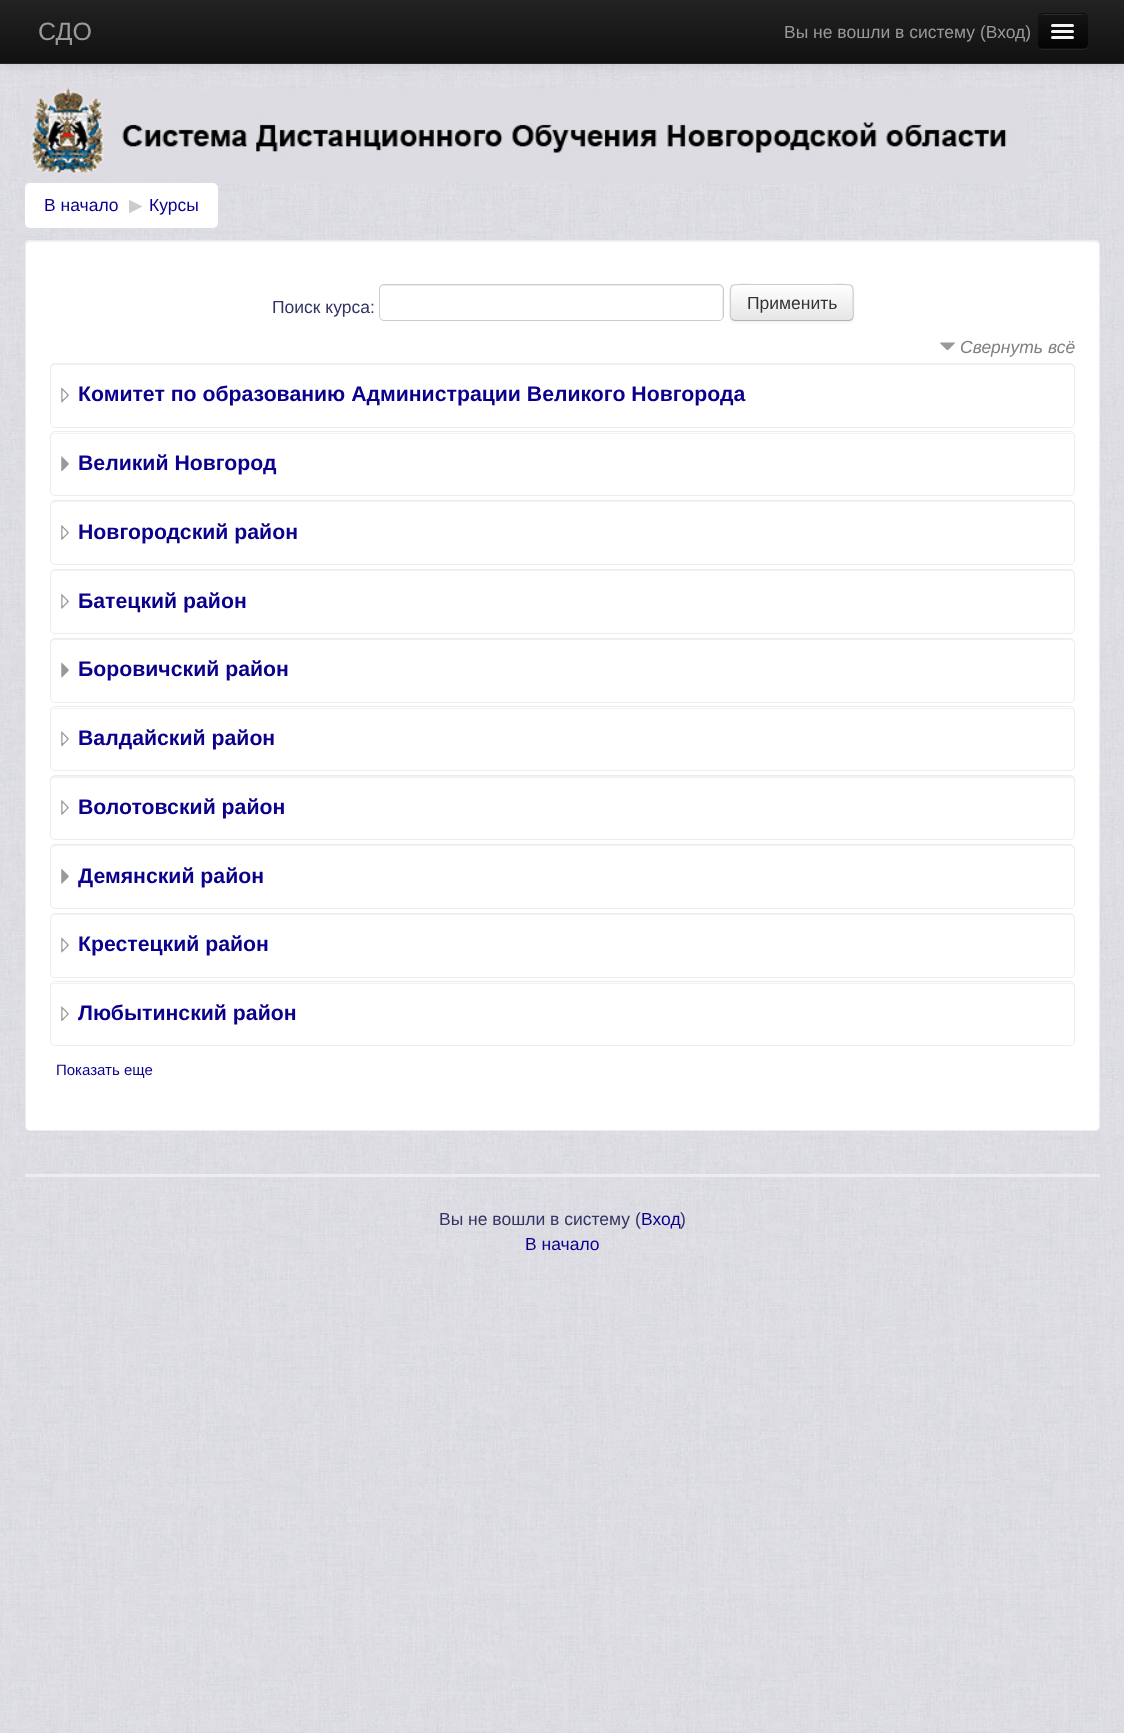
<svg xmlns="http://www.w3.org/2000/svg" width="1124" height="1733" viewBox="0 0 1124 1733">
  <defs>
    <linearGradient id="g1" gradientUnits="userSpaceOnUse" x1="563" y1="0" x2="563" y2="63"><stop offset="0" stop-color="rgb(34,34,34)"/><stop offset="1" stop-color="rgb(17,17,17)"/></linearGradient>
    <clipPath id="clip1"><rect x="1038" y="13" width="50" height="36" rx="5"/></clipPath>
    <linearGradient id="g2" gradientUnits="userSpaceOnUse" x1="1063" y1="14" x2="1063" y2="48"><stop offset="0" stop-color="rgb(21,21,21)"/><stop offset="1" stop-color="rgb(4,4,4)"/></linearGradient>
    <clipPath id="clip2"><rect x="730" y="284" width="124" height="37" rx="5"/></clipPath>
    <linearGradient id="g3" gradientUnits="userSpaceOnUse" x1="792" y1="285" x2="792" y2="320"><stop offset="0" stop-color="rgb(255,255,255)"/><stop offset="1" stop-color="rgb(230,230,230)"/></linearGradient>
  </defs>
  <rect width="100%" height="100%" fill="rgb(255,255,255)"/>
  <image x="0" y="64" width="1124" height="1669" href="pic1.png"/>
  <rect x="0" y="1" width="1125" height="64" fill="rgba(0,0,0,0.1)" filter="blur(6px)"/>
  <rect x="0" y="0" width="1124" height="63" fill="url(#g1)"/>
  <rect x="0" y="63" width="1124" height="1" fill="rgb(37,37,37)"/>
  <text x="38" y="40" font-family="Liberation Sans" font-size="25" fill="rgb(153,153,153)">СДО</text>
  <text x="784" y="38" font-family="Liberation Sans" font-size="17.5" fill="rgb(153,153,153)">Вы не вошли в систему (Вход)</text>
  <path d="M1038 46C1039 48 1041 50 1043 50H1083C1086 50 1088 48 1088 45V19L1087 17L1088 35C1088 48 1089 49 1076 49H1049C1046 49 1040 50 1038 46Z" fill="rgba(255,255,255,0.07)"/>
  <rect x="1038" y="13" width="50" height="36" rx="5" fill="rgb(14,14,14)"/>
  <g clip-path="url(#clip1)">
    <rect x="1038" y="14" width="50" height="34" fill="url(#g2)"/>
  </g>
  <path d="M1042 15H1082C1085 15 1086 17 1086 19C1086 13 1080 14 1076 14H1050C1045 14 1039 13 1039 19C1039 17 1040 15 1042 15Z" fill="rgb(44,44,44)"/>
  <path d="M1051.5 25.5L1051 27C1051.5 29 1055 28 1056 28H1069C1070 28 1073.5 29 1074 27L1073.5 25.5C1073.5 26 1073 26 1072.5 26H1052.5C1052 26 1051.5 26 1051.5 25.5Z" fill="rgb(11,11,11)"/>
  <rect x="1051" y="24" width="23" height="3" rx="1.5" fill="rgb(245,245,245)"/>
  <path d="M1051.5 31.5C1049 34.5 1055.5 34 1056 34H1069C1069.5 34 1076 34.5 1073.5 31.5C1073.5 32 1073 32.5 1072.5 32.5H1052.5C1052 32.5 1051.5 32 1051.5 31.5Z" fill="rgb(8,8,8)"/>
  <rect x="1051" y="30" width="23" height="3" rx="1.5" fill="rgb(245,245,245)"/>
  <rect x="1051" y="36" width="23" height="3" rx="1.5" fill="rgb(245,245,245)"/>
  <image x="25" y="88" width="1000" height="94" href="pic2.png"/>
  <rect x="25" y="183" width="193" height="45" rx="5" fill="rgb(255,255,255)"/>
  <text x="44" y="211" font-family="Liberation Sans" font-size="17.5" fill="rgb(11,0,140)">В начало</text>
  <text x="129" y="211" font-family="DejaVu Sans" font-size="17.5" fill="rgb(204,204,204)">▶</text>
  <text x="149" y="211" font-family="Liberation Sans" font-size="17.5" fill="rgb(11,0,140)">Курсы</text>
  <rect x="25" y="240" width="1075" height="891" rx="5" fill="rgb(255,255,255)"/>
  <path d="M30 242H1095C1097 242 1099 244 1099 246C1099 243 1098 241 1095 241H30C27 241 26 243 26 246C26 244 28 242 30 242Z" fill="rgb(242,242,242)"/>
  <rect x="25.5" y="240.5" width="1074" height="890" rx="4.5" fill="none" stroke="rgb(237,237,237)"/>
  <text x="272" y="313" font-family="Liberation Sans" font-size="17.5" fill="rgb(51,51,102)">Поиск курса:</text>
  <path d="M384 286H719C724 286 722 297 722 299V319C723 318 723 317 723 316V289C723 287 721 285 719 285H384C382 285 380 287 380 289V290C380 288 382 286 384 286Z" fill="rgb(236,236,236)"/>
  <rect x="379.5" y="284.5" width="344" height="36" rx="4.5" fill="none" stroke="rgb(204,204,204)"/>
  <rect x="730" y="285" width="124" height="38" rx="5" fill="rgba(0,0,0,0.05)" filter="blur(1px)"/>
  <g clip-path="url(#clip2)">
    <rect x="730" y="285" width="124" height="35" fill="url(#g3)"/>
  </g>
  <path d="M735 286H830C853 286 852 281 852 299V319C854 316 853 306 853 302C853 280 855 285 830 285H754C751 285 731 280 731 290C731 288 733 286 735 286Z" fill="rgba(255,255,255,0.2)"/>
  <path d="M852 319.5L849 320.5H754H735L732 319.5" fill="none" stroke="rgb(179,179,179)" stroke-width="1.2"/>
  <path d="M732 319.5C729 316.5 730.5 310 730.5 307C730.5 280.5 726 284.5 754 284.5H830C857.5 284.5 853 280.5 853 307C853 310 854.5 316.5 852 319.5" fill="none" stroke="rgb(204,204,204)" stroke-width="1.2"/>
  <text x="747" y="309" font-family="Liberation Sans" font-size="17.5" fill="rgb(51,51,51)">Применить</text>
  <image x="940" y="342" width="15" height="8" href="pic3.png"/>
  <text x="960" y="353" font-family="Liberation Sans" font-size="17.5" font-style="italic" fill="rgb(128,128,128)">Свернуть всё</text>
  <path d="M55 365H1070C1072 365 1074 367 1074 369C1074 366 1073 364 1070 364H55C52 364 51 366 51 369C51 367 53 365 55 365Z" fill="rgb(242,242,242)"/>
  <rect x="50.5" y="363.5" width="1024" height="64" rx="4.5" fill="none" stroke="rgb(237,237,237)"/>
  <image x="61" y="387" width="8" height="16" href="pic4.png"/>
  <text x="78" y="401" font-family="Liberation Sans" font-size="21.25" font-weight="bold" fill="rgb(11,0,140)">Комитет по образованию Администрации Великого Новгорода</text>
  <path d="M55 434H1070C1072 434 1074 435 1074 438C1074 435 1073 433 1070 433H55C52 433 51 435 51 438C51 435 53 434 55 434Z" fill="rgb(242,242,242)"/>
  <rect x="50.5" y="431.5" width="1024" height="64" rx="4.5" fill="none" stroke="rgb(237,237,237)"/>
  <image x="61" y="456" width="8" height="16" href="pic5.png"/>
  <text x="78" y="470" font-family="Liberation Sans" font-size="21.25" font-weight="bold" fill="rgb(11,0,140)">Великий Новгород</text>
  <path d="M55 502H1070C1072 502 1074 504 1074 506C1074 503 1073 501 1070 501H55C52 501 51 503 51 506C51 504 53 502 55 502Z" fill="rgb(242,242,242)"/>
  <rect x="50.5" y="500.5" width="1024" height="64" rx="4.5" fill="none" stroke="rgb(237,237,237)"/>
  <image x="61" y="525" width="8" height="15" href="pic6.png"/>
  <text x="78" y="539" font-family="Liberation Sans" font-size="21.25" font-weight="bold" fill="rgb(11,0,140)">Новгородский район</text>
  <path d="M55 571H1070C1072 571 1074 573 1074 575C1074 572 1073 570 1070 570H55C52 570 51 572 51 575C51 573 53 571 55 571Z" fill="rgb(242,242,242)"/>
  <rect x="50.5" y="569.5" width="1024" height="64" rx="4.5" fill="none" stroke="rgb(237,237,237)"/>
  <image x="61" y="593" width="8" height="16" href="pic7.png"/>
  <text x="78" y="608" font-family="Liberation Sans" font-size="21.25" font-weight="bold" fill="rgb(11,0,140)">Батецкий район</text>
  <path d="M55 640H1070C1072 640 1074 642 1074 644C1074 641 1073 639 1070 639H55C52 639 51 641 51 644C51 642 53 640 55 640Z" fill="rgb(242,242,242)"/>
  <rect x="50.5" y="638.5" width="1024" height="64" rx="4.5" fill="none" stroke="rgb(237,237,237)"/>
  <image x="61" y="662" width="8" height="16" href="pic8.png"/>
  <text x="78" y="676" font-family="Liberation Sans" font-size="21.25" font-weight="bold" fill="rgb(11,0,140)">Боровичский район</text>
  <path d="M55 709H1070C1072 709 1074 710 1074 712C1074 710 1072 708 1070 708H55C53 708 51 710 51 712C51 710 53 709 55 709Z" fill="rgb(242,242,242)"/>
  <rect x="50.5" y="706.5" width="1024" height="64" rx="4.5" fill="none" stroke="rgb(237,237,237)"/>
  <image x="61" y="731" width="8" height="16" href="pic9.png"/>
  <text x="78" y="745" font-family="Liberation Sans" font-size="21.25" font-weight="bold" fill="rgb(11,0,140)">Валдайский район</text>
  <path d="M55 778H1070C1072 778 1074 779 1074 781C1074 778 1073 776 1070 776H55C52 776 51 778 51 781C51 779 53 778 55 778Z" fill="rgb(242,242,242)"/>
  <rect x="50.5" y="775.5" width="1024" height="64" rx="4.5" fill="none" stroke="rgb(237,237,237)"/>
  <image x="61" y="800" width="8" height="15" href="pic6.png"/>
  <text x="78" y="814" font-family="Liberation Sans" font-size="21.25" font-weight="bold" fill="rgb(11,0,140)">Волотовский район</text>
  <path d="M55 846H1070C1072 846 1074 848 1074 850C1074 847 1073 845 1070 845H55C52 845 51 847 51 850C51 848 53 846 55 846Z" fill="rgb(242,242,242)"/>
  <rect x="50.5" y="844.5" width="1024" height="64" rx="4.5" fill="none" stroke="rgb(237,237,237)"/>
  <image x="61" y="868" width="8" height="16" href="pic10.png"/>
  <text x="78" y="883" font-family="Liberation Sans" font-size="21.25" font-weight="bold" fill="rgb(11,0,140)">Демянский район</text>
  <path d="M55 915H1070C1072 915 1074 917 1074 919C1074 916 1073 914 1070 914H55C52 914 51 916 51 919C51 917 53 915 55 915Z" fill="rgb(242,242,242)"/>
  <rect x="50.5" y="913.5" width="1024" height="64" rx="4.5" fill="none" stroke="rgb(237,237,237)"/>
  <image x="61" y="937" width="8" height="16" href="pic4.png"/>
  <text x="78" y="951" font-family="Liberation Sans" font-size="21.25" font-weight="bold" fill="rgb(11,0,140)">Крестецкий район</text>
  <path d="M55 984H1070C1072 984 1074 985 1074 988C1074 985 1073 983 1070 983H55C52 983 51 985 51 988C51 985 53 984 55 984Z" fill="rgb(242,242,242)"/>
  <rect x="50.5" y="981.5" width="1024" height="64" rx="4.5" fill="none" stroke="rgb(237,237,237)"/>
  <image x="61" y="1006" width="8" height="16" href="pic11.png"/>
  <text x="78" y="1020" font-family="Liberation Sans" font-size="21.25" font-weight="bold" fill="rgb(11,0,140)">Любытинский район</text>
  <text x="56" y="1075" font-family="Liberation Sans" font-size="15" fill="rgb(11,0,140)">Показать еще</text>
  <rect x="25" y="1174" width="1075" height="3" fill="rgb(237,237,237)"/>
  <text x="439" y="1225" font-family="Liberation Sans" font-size="17.5" fill="rgb(51,51,102)">Вы не вошли в систему (</text>
  <text x="641" y="1225" font-family="Liberation Sans" font-size="17.5" fill="rgb(11,0,140)">Вход</text>
  <text x="680" y="1225" font-family="Liberation Sans" font-size="17.5" fill="rgb(51,51,102)">)</text>
  <text x="525" y="1250" font-family="Liberation Sans" font-size="17.5" fill="rgb(11,0,140)">В начало</text>
</svg>
